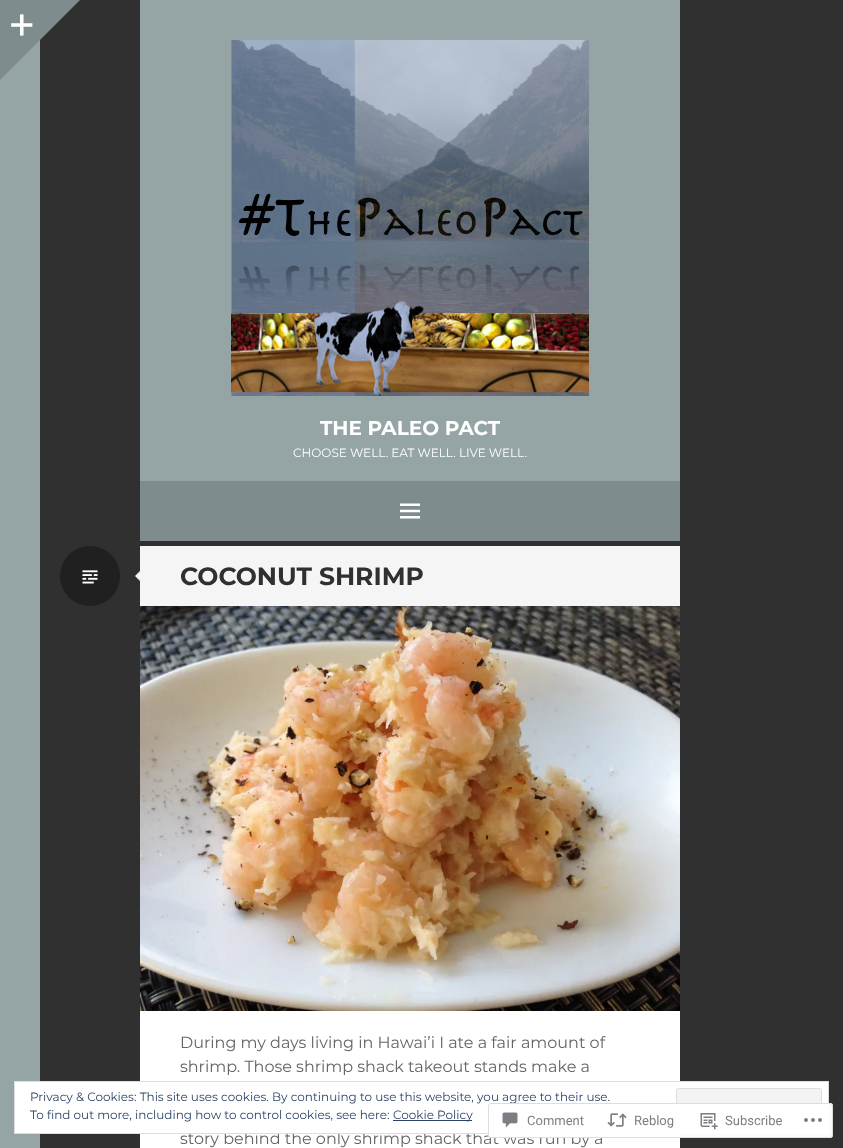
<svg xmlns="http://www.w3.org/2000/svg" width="843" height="1148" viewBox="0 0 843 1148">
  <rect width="100%" height="100%" fill="rgb(48,48,48)"/>
  <rect x="0" y="40" width="40" height="1108" fill="rgb(149,165,166)"/>
  <rect x="0" y="0" width="40" height="40" fill="rgb(127,140,141)"/>
  <image x="11" y="14" width="22" height="22" href="pic1.png"/>
  <path d="M40 0H80L40 40Z" fill="rgb(127,140,141)"/>
  <path d="M0 40H40L0 80Z" fill="rgb(127,140,141)"/>
  <rect x="140" y="0" width="540" height="481" fill="rgb(149,165,166)"/>
  <image x="231" y="40" width="358" height="356" href="pic2.png"/>
  <text x="320" y="435" font-family="Montserrat" font-size="20" font-weight="bold" fill="rgb(255,255,255)">THE PALEO PACT</text>
  <text x="293" y="457" font-family="Montserrat" font-size="12" fill="rgb(255,255,255)">CHOOSE WELL. EAT WELL. LIVE WELL.</text>
  <rect x="140" y="481" width="540" height="60" fill="rgb(127,140,141)"/>
  <image x="400" y="503" width="20" height="16" href="pic3.png"/>
  <circle cx="90" cy="576" r="30" fill="rgb(32,32,32)"/>
  <image x="82" y="570" width="16" height="14" href="pic4.png"/>
  <rect x="140" y="546" width="540" height="60" fill="rgb(245,245,245)"/>
  <path d="M140 571V581L135 576Z" fill="rgb(245,245,245)"/>
  <text x="180" y="585" font-family="Montserrat" font-size="25" font-weight="bold" fill="rgb(48,48,48)">COCONUT SHRIMP</text>
  <image x="140" y="606" width="540" height="405" href="pic5.png"/>
  <rect x="140" y="1011" width="540" height="137" fill="rgb(255,255,255)"/>
  <g font-family="Montserrat" font-size="16" fill="rgb(101,101,101)">
    <text>
      <tspan x="180" y="1048">During my days living in Hawai’i I ate a fair amount of</tspan>
      <tspan x="180" y="1072">shrimp. Those shrimp shack takeout stands make a</tspan>
    </text>
    <text x="180" y="1144">story behind the only shrimp shack that was run by a</text>
  </g>
  <rect x="14.5" y="1081.5" width="814" height="52" fill="rgb(255,255,255)" stroke="rgb(222,222,222)"/>
  <text x="30" y="1101" font-family="Montserrat" font-size="12" fill="rgb(46,68,103)">Privacy &amp; Cookies: This site uses cookies. By continuing to use this website, you agree to their use.</text>
  <rect x="676.5" y="1088.5" width="145" height="38" rx="2.5" fill="rgb(243,243,243)" stroke="rgb(222,222,222)"/>
  <text x="30" y="1119" font-family="Montserrat" font-size="12" fill="rgb(46,68,103)">To find out more, including how to control cookies, see here:</text>
  <rect x="393" y="1120" width="79" height="1" fill="rgb(46,68,103)"/>
  <text x="393" y="1119" font-family="Montserrat" font-size="12" fill="rgb(46,68,103)">Cookie Policy</text>
  <rect x="488" y="1103" width="345" height="35" rx="3" fill="rgba(255,255,255,0.98)"/>
  <rect x="488.5" y="1103.5" width="344" height="34" rx="2.5" fill="none" stroke="rgba(220,220,222,0.98)"/>
  <image x="502" y="1112" width="16" height="16" href="pic6.png"/>
  <text x="527" y="1125" font-family="Roboto" font-size="13" fill="rgb(123,127,133)">Comment</text>
  <image x="607" y="1113" width="20" height="14" href="pic7.png"/>
  <text x="634" y="1125" font-family="Roboto" font-size="13" fill="rgb(123,127,133)">Reblog</text>
  <image x="700" y="1113" width="18" height="17" href="pic8.png"/>
  <text x="725" y="1125" font-family="Roboto" font-size="13" fill="rgb(123,127,133)">Subscribe</text>
  <image x="804" y="1118" width="18" height="4" href="pic9.png"/>
</svg>
